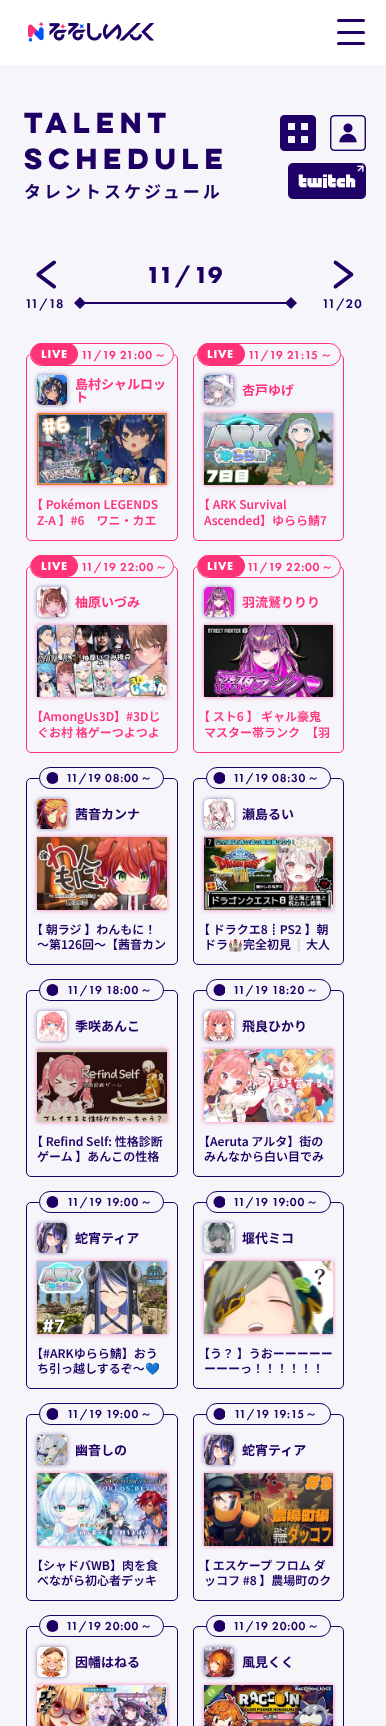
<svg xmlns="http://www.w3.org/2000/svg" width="386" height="1726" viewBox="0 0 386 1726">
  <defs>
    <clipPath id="clip1"><rect x="46" y="772" width="12" height="12"/></clipPath>
    <clipPath id="clip2"><rect x="213" y="772" width="12" height="12"/></clipPath>
    <clipPath id="clip3"><rect x="46" y="984" width="12" height="12"/></clipPath>
    <clipPath id="clip4"><rect x="213" y="984" width="12" height="12"/></clipPath>
    <clipPath id="clip5"><rect x="46" y="1196" width="12" height="12"/></clipPath>
    <clipPath id="clip6"><rect x="213" y="1196" width="12" height="12"/></clipPath>
    <clipPath id="clip7"><rect x="46" y="1408" width="12" height="12"/></clipPath>
    <clipPath id="clip8"><rect x="213" y="1408" width="12" height="12"/></clipPath>
    <clipPath id="clip9"><rect x="46" y="1620" width="12" height="12"/></clipPath>
    <clipPath id="clip10"><rect x="213" y="1620" width="12" height="12"/></clipPath>
    <clipPath id="clip11"><path d="M56.5 253V296H36.5V253Z"/></clipPath>
    <clipPath id="clip12"><path d="M353.5 253V296H333.5V253Z"/></clipPath>
  </defs>
  <rect width="100%" height="100%" fill="rgb(245,245,250)"/>
  <rect x="0" y="0" width="386" height="65" fill="rgb(255,255,255)"/>
  <image x="28" y="22" width="126" height="20" href="pic1.png"/>
  <rect x="337" y="19" width="28" height="3" rx="1.5" fill="rgb(30,0,100)"/>
  <rect x="337" y="31" width="28" height="3" rx="1.5" fill="rgb(30,0,100)"/>
  <rect x="337" y="42" width="28" height="3" rx="1.5" fill="rgb(30,0,100)"/>
  <g font-family="'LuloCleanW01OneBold'" font-size="26" font-weight="bold" fill="rgb(30,0,100)">
    <text>
      <tspan x="24" y="133">TALENT</tspan>
      <tspan x="24" y="169">SCHEDULE</tspan>
    </text>
  </g>
  <image x="280" y="115" width="36" height="36" href="pic2.png"/>
  <image x="330" y="115" width="36" height="36" href="pic3.png"/>
  <image x="288" y="163" width="78" height="36" href="pic4.png"/>
  <text x="24" y="198" font-family="Noto Sans JP" font-size="17" font-weight="bold" letter-spacing="3" fill="rgb(30,0,100)">タレントスケジュール</text>
  <text x="146" y="283" font-family="Futura PT" font-size="24" font-weight="bold" letter-spacing="2.25" fill="rgb(30,0,100)">11/19</text>
  <rect x="80" y="302" width="211" height="2" fill="rgb(30,0,100)"/>
  <path d="M74 303L80 297L86 303L80 309Z" fill="rgb(30,0,102)" fill-rule="evenodd"/>
  <path d="M285 303L291 297L297 303L291 309Z" fill="rgb(30,0,102)" fill-rule="evenodd"/>
  <rect x="26.5" y="354.5" width="151" height="186" rx="4.5" fill="none" stroke="rgb(255,50,120)"/>
  <rect x="30.5" y="343.5" width="143" height="22" rx="11" fill="rgb(245,245,250)" stroke="rgb(255,50,120)"/>
  <rect x="31" y="343" width="47" height="22" rx="11" fill="rgb(255,50,120)"/>
  <text x="41" y="358" font-family="Futura PT" font-size="12" font-weight="bold" letter-spacing="0.75" fill="rgb(255,255,255)">LIVE</text>
  <text x="81" y="359" font-family="Futura PT" font-size="12" font-weight="500" letter-spacing="0.75" fill="rgb(255,50,120)">11/19 21:00</text>
  <text x="154" y="359" font-family="WenQuanYi Zen Hei" font-size="12" font-weight="bold" letter-spacing="0.75" fill="rgb(255,50,120)">～</text>
  <rect x="37" y="375" width="30" height="30" rx="5" fill="rgba(30,0,102,0.5)" filter="blur(2px)"/>
  <image x="37" y="375" width="30" height="30" href="pic5.png"/>
  <g font-family="Noto Sans JP" font-size="13" font-weight="bold" fill="rgb(255,50,120)">
    <text>
      <tspan x="75" y="389">島村シャルロッ</tspan>
      <tspan x="75" y="402">ト</tspan>
    </text>
  </g>
  <rect x="37" y="413" width="130" height="72" fill="rgba(255,0,116,0.5)" filter="blur(2px)"/>
  <image x="37" y="413" width="130" height="72" href="pic6.png"/>
  <g font-family="Noto Sans JP" font-size="12" font-weight="600" fill="rgb(255,50,120)">
    <text x="31" y="509">【 Pokémon LEGENDS</text>
    <text x="37" y="525">Z-A 】#6　ワニ・カエ</text>
  </g>
  <rect x="193.5" y="354.5" width="150" height="186" rx="4.5" fill="none" stroke="rgb(255,50,120)"/>
  <rect x="197.5" y="343.5" width="143" height="22" rx="11" fill="rgb(245,245,250)" stroke="rgb(255,50,120)"/>
  <rect x="198" y="343" width="47" height="22" rx="11" fill="rgb(255,50,120)"/>
  <text x="207" y="358" font-family="Futura PT" font-size="12" font-weight="bold" letter-spacing="0.75" fill="rgb(255,255,255)">LIVE</text>
  <text x="248" y="359" font-family="Futura PT" font-size="12" font-weight="500" letter-spacing="0.75" fill="rgb(255,50,120)">11/19 21:15</text>
  <text x="320" y="359" font-family="WenQuanYi Zen Hei" font-size="12" font-weight="bold" letter-spacing="0.75" fill="rgb(255,50,120)">～</text>
  <rect x="204" y="375" width="30" height="30" rx="5" fill="rgba(30,0,102,0.5)" filter="blur(2px)"/>
  <image x="204" y="375" width="30" height="30" href="pic7.png"/>
  <text x="242" y="395" font-family="Noto Sans JP" font-size="13" font-weight="bold" fill="rgb(255,50,120)">杏戸ゆげ</text>
  <rect x="204" y="413" width="129" height="72" fill="rgba(255,0,116,0.5)" filter="blur(2px)"/>
  <image x="204" y="413" width="129" height="72" href="pic8.png"/>
  <g font-family="Noto Sans JP" font-size="12" font-weight="600" fill="rgb(255,50,120)">
    <text x="198" y="509">【 ARK Survival</text>
    <text x="204" y="525">Ascended】ゆらら鯖7</text>
  </g>
  <rect x="26.5" y="566.5" width="151" height="186" rx="4.5" fill="none" stroke="rgb(255,50,120)"/>
  <rect x="30.5" y="555.5" width="143" height="22" rx="11" fill="rgb(245,245,250)" stroke="rgb(255,50,120)"/>
  <rect x="31" y="555" width="47" height="22" rx="11" fill="rgb(255,50,120)"/>
  <text x="41" y="570" font-family="Futura PT" font-size="12" font-weight="bold" letter-spacing="0.75" fill="rgb(255,255,255)">LIVE</text>
  <text x="81" y="571" font-family="Futura PT" font-size="12" font-weight="500" letter-spacing="0.75" fill="rgb(255,50,120)">11/19 22:00</text>
  <text x="155" y="571" font-family="WenQuanYi Zen Hei" font-size="12" font-weight="bold" letter-spacing="0.75" fill="rgb(255,50,120)">～</text>
  <rect x="37" y="587" width="30" height="30" rx="5" fill="rgba(30,0,102,0.5)" filter="blur(2px)"/>
  <image x="37" y="587" width="30" height="30" href="pic9.png"/>
  <text x="75" y="607" font-family="Noto Sans JP" font-size="13" font-weight="bold" fill="rgb(255,50,120)">柚原いづみ</text>
  <rect x="37" y="625" width="130" height="72" fill="rgba(255,0,116,0.5)" filter="blur(2px)"/>
  <image x="37" y="625" width="130" height="72" href="pic10.png"/>
  <g font-family="Noto Sans JP" font-size="12" font-weight="600" fill="rgb(255,50,120)">
    <text x="31" y="721">【AmongUs3D】#3Dじ</text>
    <text x="37" y="737">ぐお村 格ゲーつよつよ</text>
  </g>
  <rect x="193.5" y="566.5" width="150" height="186" rx="4.5" fill="none" stroke="rgb(255,50,120)"/>
  <rect x="197.5" y="555.5" width="143" height="22" rx="11" fill="rgb(245,245,250)" stroke="rgb(255,50,120)"/>
  <rect x="198" y="555" width="47" height="22" rx="11" fill="rgb(255,50,120)"/>
  <text x="207" y="570" font-family="Futura PT" font-size="12" font-weight="bold" letter-spacing="0.75" fill="rgb(255,255,255)">LIVE</text>
  <text x="247" y="571" font-family="Futura PT" font-size="12" font-weight="500" letter-spacing="0.75" fill="rgb(255,50,120)">11/19 22:00</text>
  <text x="321" y="571" font-family="WenQuanYi Zen Hei" font-size="12" font-weight="bold" letter-spacing="0.75" fill="rgb(255,50,120)">～</text>
  <rect x="204" y="587" width="30" height="30" rx="5" fill="rgba(30,0,102,0.5)" filter="blur(2px)"/>
  <image x="204" y="587" width="30" height="30" href="pic11.png"/>
  <text x="242" y="607" font-family="Noto Sans JP" font-size="13" font-weight="bold" fill="rgb(255,50,120)">羽流鷲りりり</text>
  <rect x="204" y="625" width="129" height="72" fill="rgba(255,0,116,0.5)" filter="blur(2px)"/>
  <image x="204" y="625" width="129" height="72" href="pic12.png"/>
  <g font-family="Noto Sans JP" font-size="12" font-weight="600" fill="rgb(255,50,120)">
    <text x="198" y="721">【 スト6 】 ギャル豪鬼</text>
    <text x="204" y="737">マスター帯ランク　【羽</text>
  </g>
  <rect x="26.5" y="778.5" width="151" height="186" rx="4.5" fill="none" stroke="rgb(30,0,100)"/>
  <rect x="39.5" y="767.5" width="124" height="21" rx="10.5" fill="rgb(245,245,250)" stroke="rgb(30,0,100)"/>
  <g clip-path="url(#clip1)">
    <circle cx="52.5" cy="778" r="6" fill="rgb(30,0,100)"/>
  </g>
  <text x="66" y="782" font-family="Futura PT" font-size="12" font-weight="500" letter-spacing="0.75" fill="rgb(30,0,100)">11/19 08:00</text>
  <text x="140" y="782" font-family="WenQuanYi Zen Hei" font-size="12" font-weight="bold" letter-spacing="0.75" fill="rgb(30,0,100)">～</text>
  <rect x="37" y="799" width="30" height="30" rx="5" fill="rgba(30,0,102,0.5)" filter="blur(2px)"/>
  <image x="37" y="799" width="30" height="30" href="pic13.png"/>
  <text x="75" y="819" font-family="Noto Sans JP" font-size="13" font-weight="bold" fill="rgb(30,0,100)">茜音カンナ</text>
  <rect x="37" y="837" width="130" height="73" fill="rgba(255,0,116,0.5)" filter="blur(2px)"/>
  <image x="37" y="837" width="130" height="73" href="pic14.png"/>
  <g font-family="Noto Sans JP" font-size="12" font-weight="600" fill="rgb(30,0,100)">
    <text x="31" y="934">【 朝ラジ 】わんもに！</text>
    <text x="37" y="949">～第126回～【茜音カン</text>
  </g>
  <rect x="193.5" y="778.5" width="150" height="186" rx="4.5" fill="none" stroke="rgb(30,0,100)"/>
  <rect x="206.5" y="767.5" width="124" height="21" rx="10.5" fill="rgb(245,245,250)" stroke="rgb(30,0,100)"/>
  <g clip-path="url(#clip2)">
    <circle cx="219.5" cy="778" r="6" fill="rgb(30,0,100)"/>
  </g>
  <text x="233" y="782" font-family="Futura PT" font-size="12" font-weight="500" letter-spacing="0.75" fill="rgb(30,0,100)">11/19 08:30</text>
  <text x="307" y="782" font-family="WenQuanYi Zen Hei" font-size="12" font-weight="bold" letter-spacing="0.75" fill="rgb(30,0,100)">～</text>
  <rect x="204" y="799" width="30" height="30" rx="5" fill="rgba(30,0,102,0.5)" filter="blur(2px)"/>
  <image x="204" y="799" width="30" height="30" href="pic15.png"/>
  <text x="242" y="819" font-family="Noto Sans JP" font-size="13" font-weight="bold" fill="rgb(30,0,100)">瀬島るい</text>
  <rect x="204" y="837" width="129" height="73" fill="rgba(255,0,116,0.5)" filter="blur(2px)"/>
  <image x="204" y="837" width="129" height="73" href="pic16.png"/>
  <g font-family="Noto Sans JP" font-size="12" font-weight="600" fill="rgb(30,0,100)">
    <text x="198" y="934">【 ドラクエ8┋PS2 】朝</text>
    <text x="204" y="949">ドラ</text>
  </g>
  <text x="228" y="949" font-family="Noto Color Emoji" font-size="12" font-weight="bold" fill="rgb(30,0,100)">🏰</text>
  <text x="243" y="949" font-family="Noto Sans JP" font-size="12" font-weight="600" fill="rgb(30,0,100)">完全初見</text>
  <text x="291" y="949" font-family="Noto Color Emoji" font-size="12" font-weight="bold" fill="rgb(30,0,100)">❕</text>
  <text x="306" y="949" font-family="Noto Sans JP" font-size="12" font-weight="600" fill="rgb(30,0,100)">大人</text>
  <rect x="26.5" y="990.5" width="151" height="186" rx="4.5" fill="none" stroke="rgb(30,0,100)"/>
  <rect x="39.5" y="979.5" width="124" height="21" rx="10.5" fill="rgb(245,245,250)" stroke="rgb(30,0,100)"/>
  <g clip-path="url(#clip3)">
    <circle cx="52.5" cy="990" r="6" fill="rgb(30,0,100)"/>
  </g>
  <text x="67" y="994" font-family="Futura PT" font-size="12" font-weight="500" letter-spacing="0.75" fill="rgb(30,0,100)">11/19 18:00</text>
  <text x="140" y="994" font-family="WenQuanYi Zen Hei" font-size="12" font-weight="bold" letter-spacing="0.75" fill="rgb(30,0,100)">～</text>
  <rect x="37" y="1011" width="30" height="30" rx="5" fill="rgba(30,0,102,0.5)" filter="blur(2px)"/>
  <image x="37" y="1011" width="30" height="30" href="pic17.png"/>
  <text x="75" y="1031" font-family="Noto Sans JP" font-size="13" font-weight="bold" fill="rgb(30,0,100)">季咲あんこ</text>
  <rect x="37" y="1049" width="130" height="73" fill="rgba(255,0,116,0.5)" filter="blur(2px)"/>
  <image x="37" y="1049" width="130" height="73" href="pic18.png"/>
  <g font-family="Noto Sans JP" font-size="12" font-weight="600" fill="rgb(30,0,100)">
    <text x="31" y="1146">【 Refind Self: 性格診断</text>
    <text x="37" y="1161">ゲーム 】あんこの性格</text>
  </g>
  <rect x="193.5" y="990.5" width="150" height="186" rx="4.5" fill="none" stroke="rgb(30,0,100)"/>
  <rect x="206.5" y="979.5" width="124" height="21" rx="10.5" fill="rgb(245,245,250)" stroke="rgb(30,0,100)"/>
  <g clip-path="url(#clip4)">
    <circle cx="219.5" cy="990" r="6" fill="rgb(30,0,100)"/>
  </g>
  <text x="233" y="994" font-family="Futura PT" font-size="12" font-weight="500" letter-spacing="0.75" fill="rgb(30,0,100)">11/19 18:20</text>
  <text x="306" y="994" font-family="WenQuanYi Zen Hei" font-size="12" font-weight="bold" letter-spacing="0.75" fill="rgb(30,0,100)">～</text>
  <rect x="204" y="1011" width="30" height="30" rx="5" fill="rgba(30,0,102,0.5)" filter="blur(2px)"/>
  <image x="204" y="1011" width="30" height="30" href="pic19.png"/>
  <text x="242" y="1031" font-family="Noto Sans JP" font-size="13" font-weight="bold" fill="rgb(30,0,100)">飛良ひかり</text>
  <rect x="204" y="1049" width="129" height="73" fill="rgba(255,0,116,0.5)" filter="blur(2px)"/>
  <image x="204" y="1049" width="129" height="73" href="pic20.png"/>
  <g font-family="Noto Sans JP" font-size="12" font-weight="600" fill="rgb(30,0,100)">
    <text x="198" y="1146">【Aeruta アルタ】街の</text>
    <text x="204" y="1161">みんなから白い目でみ</text>
  </g>
  <rect x="26.5" y="1202.5" width="151" height="186" rx="4.5" fill="none" stroke="rgb(30,0,100)"/>
  <rect x="39.5" y="1191.5" width="124" height="21" rx="10.5" fill="rgb(245,245,250)" stroke="rgb(30,0,100)"/>
  <g clip-path="url(#clip5)">
    <circle cx="52.5" cy="1202" r="6" fill="rgb(30,0,100)"/>
  </g>
  <text x="67" y="1206" font-family="Futura PT" font-size="12" font-weight="500" letter-spacing="0.75" fill="rgb(30,0,100)">11/19 19:00</text>
  <text x="140" y="1206" font-family="WenQuanYi Zen Hei" font-size="12" font-weight="bold" letter-spacing="0.75" fill="rgb(30,0,100)">～</text>
  <rect x="37" y="1223" width="30" height="30" rx="5" fill="rgba(30,0,102,0.5)" filter="blur(2px)"/>
  <image x="37" y="1223" width="30" height="30" href="pic21.png"/>
  <text x="75" y="1243" font-family="Noto Sans JP" font-size="13" font-weight="bold" fill="rgb(30,0,100)">蛇宵ティア</text>
  <rect x="37" y="1261" width="130" height="73" fill="rgba(255,0,116,0.5)" filter="blur(2px)"/>
  <image x="37" y="1261" width="130" height="73" href="pic22.png"/>
  <g font-family="Noto Sans JP" font-size="12" font-weight="600" fill="rgb(30,0,100)">
    <text x="31" y="1358">【#ARKゆらら鯖】おう</text>
    <text x="37" y="1373">ち引っ越しするぞ～</text>
  </g>
  <text x="145" y="1373" font-family="Noto Color Emoji" font-size="12" font-weight="bold" fill="rgb(30,0,100)">💙</text>
  <rect x="193.5" y="1202.5" width="150" height="186" rx="4.5" fill="none" stroke="rgb(30,0,100)"/>
  <rect x="206.5" y="1191.5" width="124" height="21" rx="10.5" fill="rgb(245,245,250)" stroke="rgb(30,0,100)"/>
  <g clip-path="url(#clip6)">
    <circle cx="219.5" cy="1202" r="6" fill="rgb(30,0,100)"/>
  </g>
  <text x="233" y="1206" font-family="Futura PT" font-size="12" font-weight="500" letter-spacing="0.75" fill="rgb(30,0,100)">11/19 19:00</text>
  <text x="306" y="1206" font-family="WenQuanYi Zen Hei" font-size="12" font-weight="bold" letter-spacing="0.75" fill="rgb(30,0,100)">～</text>
  <rect x="204" y="1223" width="30" height="30" rx="5" fill="rgba(30,0,102,0.5)" filter="blur(2px)"/>
  <image x="204" y="1223" width="30" height="30" href="pic23.png"/>
  <text x="242" y="1243" font-family="Noto Sans JP" font-size="13" font-weight="bold" fill="rgb(30,0,100)">堰代ミコ</text>
  <rect x="204" y="1261" width="129" height="73" fill="rgba(255,0,116,0.5)" filter="blur(2px)"/>
  <image x="204" y="1261" width="129" height="73" href="pic24.png"/>
  <g font-family="Noto Sans JP" font-size="12" font-weight="600" fill="rgb(30,0,100)">
    <text x="198" y="1358">【う？ 】うおーーーーー</text>
    <text x="204" y="1373">ーーーっ！！！！！！</text>
  </g>
  <rect x="26.5" y="1414.5" width="151" height="186" rx="4.5" fill="none" stroke="rgb(30,0,100)"/>
  <rect x="39.5" y="1403.5" width="124" height="21" rx="10.5" fill="rgb(245,245,250)" stroke="rgb(30,0,100)"/>
  <g clip-path="url(#clip7)">
    <circle cx="52.5" cy="1414" r="6" fill="rgb(30,0,100)"/>
  </g>
  <text x="67" y="1418" font-family="Futura PT" font-size="12" font-weight="500" letter-spacing="0.75" fill="rgb(30,0,100)">11/19 19:00</text>
  <text x="140" y="1418" font-family="WenQuanYi Zen Hei" font-size="12" font-weight="bold" letter-spacing="0.75" fill="rgb(30,0,100)">～</text>
  <rect x="37" y="1435" width="30" height="30" rx="5" fill="rgba(30,0,102,0.5)" filter="blur(2px)"/>
  <image x="37" y="1435" width="30" height="30" href="pic25.png"/>
  <text x="75" y="1455" font-family="Noto Sans JP" font-size="13" font-weight="bold" fill="rgb(30,0,100)">幽音しの</text>
  <rect x="37" y="1473" width="130" height="73" fill="rgba(255,0,116,0.5)" filter="blur(2px)"/>
  <image x="37" y="1473" width="130" height="73" href="pic26.png"/>
  <g font-family="Noto Sans JP" font-size="12" font-weight="600" fill="rgb(30,0,100)">
    <text x="31" y="1570">【シャドバWB】肉を食</text>
    <text x="37" y="1585">べながら初心者デッキ</text>
  </g>
  <rect x="193.5" y="1414.5" width="150" height="186" rx="4.5" fill="none" stroke="rgb(30,0,100)"/>
  <rect x="206.5" y="1403.5" width="124" height="21" rx="10.5" fill="rgb(245,245,250)" stroke="rgb(30,0,100)"/>
  <g clip-path="url(#clip8)">
    <circle cx="219.5" cy="1414" r="6" fill="rgb(30,0,100)"/>
  </g>
  <text x="234" y="1418" font-family="Futura PT" font-size="12" font-weight="500" letter-spacing="0.75" fill="rgb(30,0,100)">11/19 19:15</text>
  <text x="305" y="1418" font-family="WenQuanYi Zen Hei" font-size="12" font-weight="bold" letter-spacing="0.75" fill="rgb(30,0,100)">～</text>
  <rect x="204" y="1435" width="30" height="30" rx="5" fill="rgba(30,0,102,0.5)" filter="blur(2px)"/>
  <image x="204" y="1435" width="30" height="30" href="pic21.png"/>
  <text x="242" y="1455" font-family="Noto Sans JP" font-size="13" font-weight="bold" fill="rgb(30,0,100)">蛇宵ティア</text>
  <rect x="204" y="1473" width="129" height="73" fill="rgba(255,0,116,0.5)" filter="blur(2px)"/>
  <image x="204" y="1473" width="129" height="73" href="pic27.png"/>
  <g font-family="Noto Sans JP" font-size="12" font-weight="600" fill="rgb(30,0,100)">
    <text x="198" y="1570">【 エスケープ フロム ダ</text>
    <text x="204" y="1585">ッコフ #8 】農場町のク</text>
  </g>
  <rect x="26.5" y="1626.5" width="151" height="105" rx="4.5" fill="none" stroke="rgb(30,0,100)"/>
  <rect x="39.5" y="1615.5" width="124" height="21" rx="10.5" fill="rgb(245,245,250)" stroke="rgb(30,0,100)"/>
  <g clip-path="url(#clip9)">
    <circle cx="52.5" cy="1626" r="6" fill="rgb(30,0,100)"/>
  </g>
  <text x="66" y="1630" font-family="Futura PT" font-size="12" font-weight="500" letter-spacing="0.75" fill="rgb(30,0,100)">11/19 20:00</text>
  <text x="140" y="1630" font-family="WenQuanYi Zen Hei" font-size="12" font-weight="bold" letter-spacing="0.75" fill="rgb(30,0,100)">～</text>
  <rect x="37" y="1647" width="30" height="30" rx="5" fill="rgba(30,0,102,0.5)" filter="blur(2px)"/>
  <image x="37" y="1647" width="30" height="30" href="pic28.png"/>
  <text x="75" y="1667" font-family="Noto Sans JP" font-size="13" font-weight="bold" fill="rgb(30,0,100)">因幡はねる</text>
  <rect x="37" y="1685" width="130" height="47" fill="rgba(255,0,116,0.5)" filter="blur(2px)"/>
  <image x="37" y="1685" width="130" height="41" href="pic29.png"/>
  <rect x="193.5" y="1626.5" width="150" height="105" rx="4.5" fill="none" stroke="rgb(30,0,100)"/>
  <rect x="206.5" y="1615.5" width="124" height="21" rx="10.5" fill="rgb(245,245,250)" stroke="rgb(30,0,100)"/>
  <g clip-path="url(#clip10)">
    <circle cx="219.5" cy="1626" r="6" fill="rgb(30,0,100)"/>
  </g>
  <text x="233" y="1630" font-family="Futura PT" font-size="12" font-weight="500" letter-spacing="0.75" fill="rgb(30,0,100)">11/19 20:00</text>
  <text x="307" y="1630" font-family="WenQuanYi Zen Hei" font-size="12" font-weight="bold" letter-spacing="0.75" fill="rgb(30,0,100)">～</text>
  <rect x="204" y="1647" width="30" height="30" rx="5" fill="rgba(30,0,102,0.5)" filter="blur(2px)"/>
  <image x="204" y="1647" width="30" height="30" href="pic30.png"/>
  <text x="242" y="1667" font-family="Noto Sans JP" font-size="13" font-weight="bold" fill="rgb(30,0,100)">風見くく</text>
  <rect x="204" y="1685" width="129" height="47" fill="rgba(255,0,116,0.5)" filter="blur(2px)"/>
  <image x="204" y="1685" width="129" height="41" href="pic31.png"/>
  <g clip-path="url(#clip11)">
    <path d="M54 262.5L38 274.5L54 286.5" fill="none" stroke="rgb(30,0,100)" stroke-width="4" stroke-linecap="round" stroke-linejoin="round"/>
  </g>
  <text x="25" y="308" font-family="Futura PT" font-size="13" font-weight="500" letter-spacing="1" fill="rgb(30,0,100)">11/18</text>
  <g clip-path="url(#clip12)">
    <path d="M335.5 286.5L351.5 274.5L335.5 262.5" fill="none" stroke="rgb(30,0,100)" stroke-width="4" stroke-linecap="round" stroke-linejoin="round"/>
  </g>
  <text x="322" y="308" font-family="Futura PT" font-size="13" font-weight="500" letter-spacing="1" fill="rgb(30,0,100)">11/20</text>
</svg>
